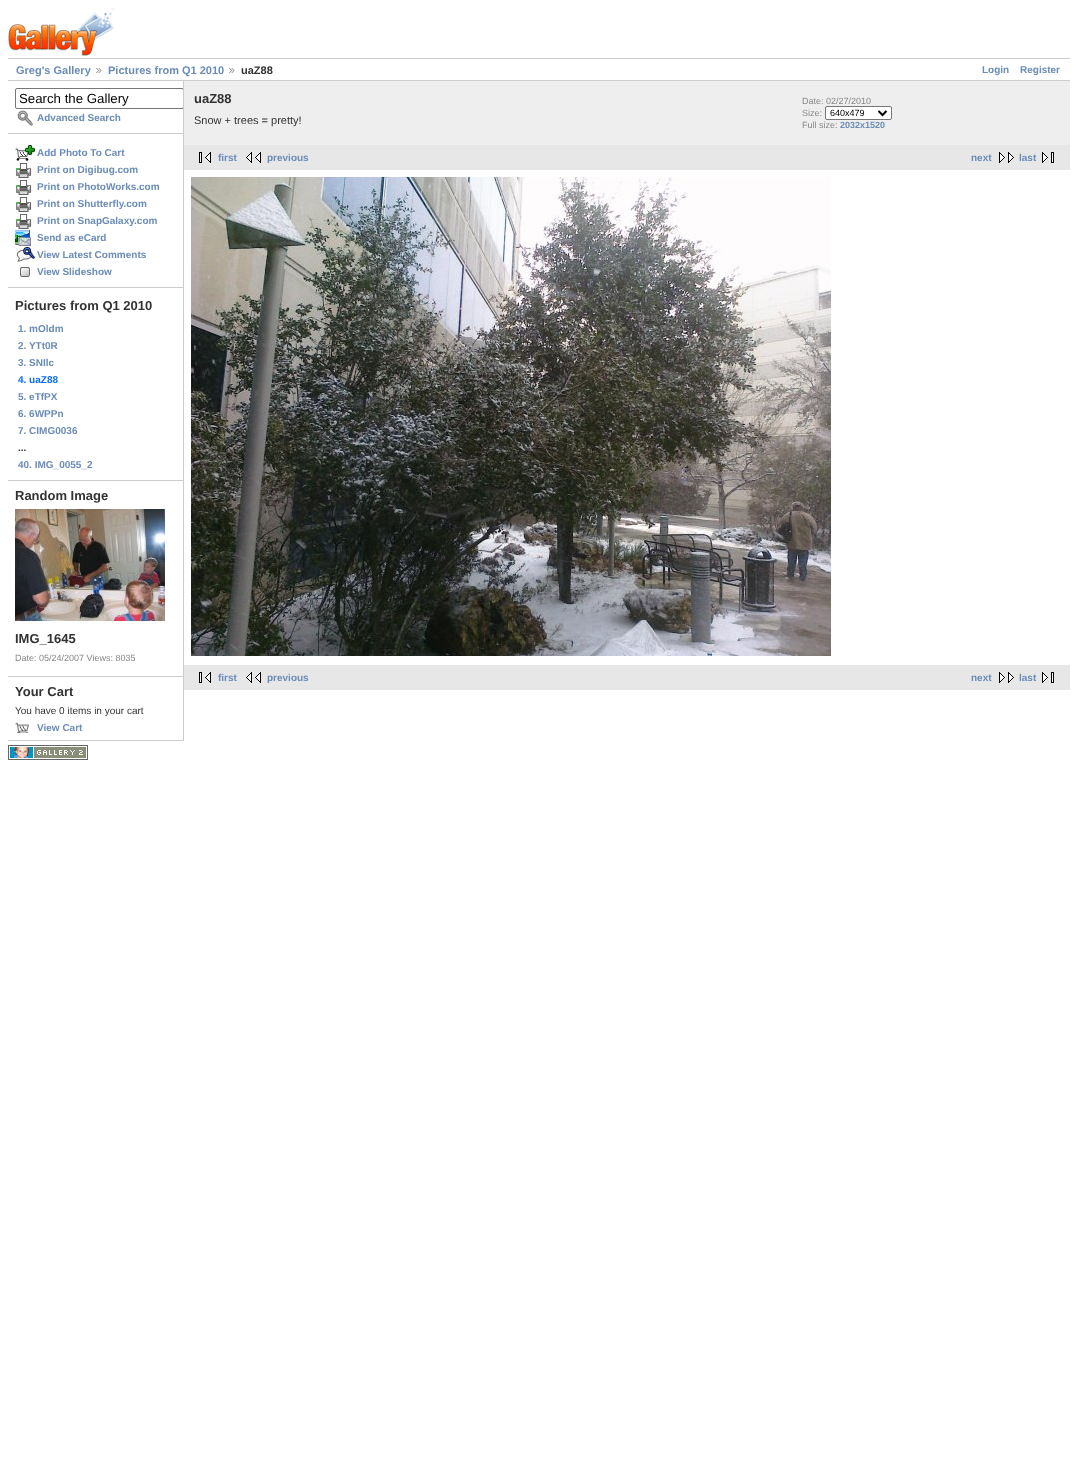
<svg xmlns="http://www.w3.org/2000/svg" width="1078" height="1460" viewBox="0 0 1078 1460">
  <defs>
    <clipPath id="clip1"><rect x="8" y="81" width="175" height="660"/></clipPath>
  </defs>
  <rect width="100%" height="100%" fill="rgb(255,255,255)"/>
  <image x="8" y="8" width="107" height="48" href="pic1.png"/>
  <rect x="8" y="58" width="1062" height="1" fill="rgb(204,204,204)"/>
  <rect x="8" y="80" width="1062" height="1" fill="rgb(204,204,204)"/>
  <text x="16" y="74" font-family="Liberation Sans" font-size="11" font-weight="bold" fill="rgb(107,140,183)">Greg's Gallery</text>
  <image x="96" y="68" width="6" height="5" href="pic2.png"/>
  <text x="108" y="74" font-family="Liberation Sans" font-size="11" font-weight="bold" fill="rgb(107,140,183)">Pictures from Q1 2010</text>
  <image x="229" y="68" width="6" height="5" href="pic2.png"/>
  <text x="241" y="74" font-family="Liberation Sans" font-size="11" font-weight="bold" fill="rgb(51,51,51)">uaZ88</text>
  <g font-family="Liberation Sans" font-size="10" font-weight="bold" fill="rgb(107,140,183)">
    <text x="982" y="73">Login</text>
    <text x="1020" y="73">Register</text>
  </g>
  <rect x="183" y="81" width="1" height="660" fill="rgb(204,204,204)"/>
  <rect x="8" y="133" width="175" height="1" fill="rgb(204,204,204)"/>
  <g clip-path="url(#clip1)">
    <rect x="15.5" y="88.5" width="168" height="20" rx="1.5" fill="none" stroke="rgb(118,118,118)"/>
  </g>
  <text x="19" y="103" font-family="Liberation Sans" font-size="13.25" fill="rgb(0,0,0)">Search the Gallery</text>
  <image x="17" y="110" width="16" height="16" href="pic3.png"/>
  <text x="37" y="121" font-family="Liberation Sans" font-size="10" font-weight="bold" fill="rgb(107,140,183)">Advanced Search</text>
  <rect x="8" y="287" width="175" height="1" fill="rgb(204,204,204)"/>
  <image x="15" y="145" width="20" height="16" href="pic4.png"/>
  <text x="37" y="156" font-family="Liberation Sans" font-size="10" font-weight="bold" fill="rgb(107,140,183)">Add Photo To Cart</text>
  <image x="16" y="163" width="16" height="15" href="pic5.png"/>
  <text x="37" y="173" font-family="Liberation Sans" font-size="10" font-weight="bold" fill="rgb(107,140,183)">Print on Digibug.com</text>
  <image x="16" y="180" width="16" height="15" href="pic5.png"/>
  <text x="37" y="190" font-family="Liberation Sans" font-size="10" font-weight="bold" fill="rgb(107,140,183)">Print on PhotoWorks.com</text>
  <image x="16" y="197" width="16" height="15" href="pic5.png"/>
  <text x="37" y="207" font-family="Liberation Sans" font-size="10" font-weight="bold" fill="rgb(107,140,183)">Print on Shutterfly.com</text>
  <image x="16" y="214" width="16" height="15" href="pic5.png"/>
  <text x="37" y="224" font-family="Liberation Sans" font-size="10" font-weight="bold" fill="rgb(107,140,183)">Print on SnapGalaxy.com</text>
  <image x="15" y="230" width="16" height="16" href="pic6.png"/>
  <text x="37" y="241" font-family="Liberation Sans" font-size="10" font-weight="bold" fill="rgb(107,140,183)">Send as eCard</text>
  <image x="16" y="247" width="19" height="15" href="pic7.png"/>
  <text x="37" y="258" font-family="Liberation Sans" font-size="10" font-weight="bold" fill="rgb(107,140,183)">View Latest Comments</text>
  <image x="20" y="267" width="10" height="10" href="pic8.png"/>
  <text x="37" y="275" font-family="Liberation Sans" font-size="10" font-weight="bold" fill="rgb(107,140,183)">View Slideshow</text>
  <rect x="8" y="480" width="175" height="1" fill="rgb(204,204,204)"/>
  <text x="15" y="310" font-family="Liberation Sans" font-size="13" font-weight="bold" fill="rgb(51,51,51)">Pictures from Q1 2010</text>
  <g font-family="Liberation Sans" font-size="10" font-weight="bold" fill="rgb(107,140,183)">
    <text>
      <tspan x="18" y="332">1. mOldm</tspan>
      <tspan x="18" y="349">2. YTt0R</tspan>
      <tspan x="18" y="366">3. SNIlc</tspan>
    </text>
  </g>
  <text x="18" y="383" font-family="Liberation Sans" font-size="10" font-weight="bold" fill="rgb(11,108,255)">4. uaZ88</text>
  <g font-family="Liberation Sans" font-size="10" font-weight="bold" fill="rgb(107,140,183)">
    <text>
      <tspan x="18" y="400">5. eTfPX</tspan>
      <tspan x="18" y="417">6. 6WPPn</tspan>
      <tspan x="18" y="434">7. CIMG0036</tspan>
    </text>
  </g>
  <text x="18" y="451" font-family="Liberation Sans" font-size="10" font-weight="bold" fill="rgb(51,51,51)">...</text>
  <text x="18" y="468" font-family="Liberation Sans" font-size="10" font-weight="bold" fill="rgb(107,140,183)">40. IMG_0055_2</text>
  <rect x="8" y="676" width="175" height="1" fill="rgb(204,204,204)"/>
  <text x="15" y="500" font-family="Liberation Sans" font-size="13" font-weight="bold" fill="rgb(51,51,51)">Random Image</text>
  <image x="15" y="509" width="150" height="112" href="pic9.png"/>
  <text x="15" y="643" font-family="Liberation Sans" font-size="13" font-weight="bold" fill="rgb(51,51,51)">IMG_1645</text>
  <text x="15" y="661" font-family="Liberation Sans" font-size="9" fill="rgb(136,136,136)">Date: 05/24/2007 Views: 8035</text>
  <rect x="8" y="740" width="175" height="1" fill="rgb(204,204,204)"/>
  <text x="15" y="696" font-family="Liberation Sans" font-size="13" font-weight="bold" fill="rgb(51,51,51)">Your Cart</text>
  <text x="15" y="714" font-family="Liberation Sans" font-size="10" fill="rgb(51,51,51)">You have 0 items in your cart</text>
  <image x="15" y="722" width="14" height="11" href="pic10.png"/>
  <text x="37" y="731" font-family="Liberation Sans" font-size="10" font-weight="bold" fill="rgb(107,140,183)">View Cart</text>
  <rect x="184" y="81" width="886" height="64" fill="rgb(238,238,238)"/>
  <text x="194" y="103" font-family="Liberation Sans" font-size="13" font-weight="bold" fill="rgb(51,51,51)">uaZ88</text>
  <text x="194" y="124" font-family="Liberation Sans" font-size="11" fill="rgb(51,51,51)">Snow + trees = pretty!</text>
  <g font-family="Liberation Sans" font-size="9" fill="rgb(136,136,136)">
    <text>
      <tspan x="802" y="104">Date: 02/27/2010</tspan>
      <tspan x="802" y="116">Size:</tspan>
    </text>
  </g>
  <rect x="825.5" y="106.5" width="66" height="13" rx="1.5" fill="rgb(255,255,255)" stroke="rgb(118,118,118)"/>
  <path d="M878.5 111L882.5 115L886.5 111" fill="none" stroke="rgb(0,0,0)" stroke-width="2"/>
  <text x="830" y="116" font-family="Liberation Sans" font-size="9" fill="rgb(0,0,0)">640x479</text>
  <text x="802" y="128" font-family="Liberation Sans" font-size="9" fill="rgb(136,136,136)">Full size:</text>
  <text x="840" y="128" font-family="Liberation Sans" font-size="9" font-weight="bold" fill="rgb(107,140,183)">2032x1520</text>
  <rect x="184" y="145" width="886" height="25" fill="rgb(231,231,231)"/>
  <image x="199" y="152" width="12" height="11" href="pic11.png"/>
  <text x="218" y="161" font-family="Liberation Sans" font-size="10" font-weight="bold" fill="rgb(107,140,183)">first</text>
  <image x="246" y="152" width="15" height="11" href="pic12.png"/>
  <g font-family="Liberation Sans" font-size="10" font-weight="bold" fill="rgb(107,140,183)">
    <text x="267" y="161">previous</text>
    <text x="971" y="161">next</text>
  </g>
  <image x="999" y="152" width="15" height="11" href="pic13.png"/>
  <text x="1019" y="161" font-family="Liberation Sans" font-size="10" font-weight="bold" fill="rgb(107,140,183)">last</text>
  <image x="1042" y="152" width="12" height="11" href="pic14.png"/>
  <image x="191" y="177" width="640" height="479" href="pic15.png"/>
  <rect x="184" y="665" width="886" height="25" fill="rgb(231,231,231)"/>
  <image x="199" y="672" width="12" height="11" href="pic11.png"/>
  <text x="218" y="681" font-family="Liberation Sans" font-size="10" font-weight="bold" fill="rgb(107,140,183)">first</text>
  <image x="246" y="672" width="15" height="11" href="pic12.png"/>
  <g font-family="Liberation Sans" font-size="10" font-weight="bold" fill="rgb(107,140,183)">
    <text x="267" y="681">previous</text>
    <text x="971" y="681">next</text>
  </g>
  <image x="999" y="672" width="15" height="11" href="pic13.png"/>
  <text x="1019" y="681" font-family="Liberation Sans" font-size="10" font-weight="bold" fill="rgb(107,140,183)">last</text>
  <image x="1042" y="672" width="12" height="11" href="pic14.png"/>
  <image x="8" y="745" width="80" height="15" href="pic16.png"/>
</svg>
